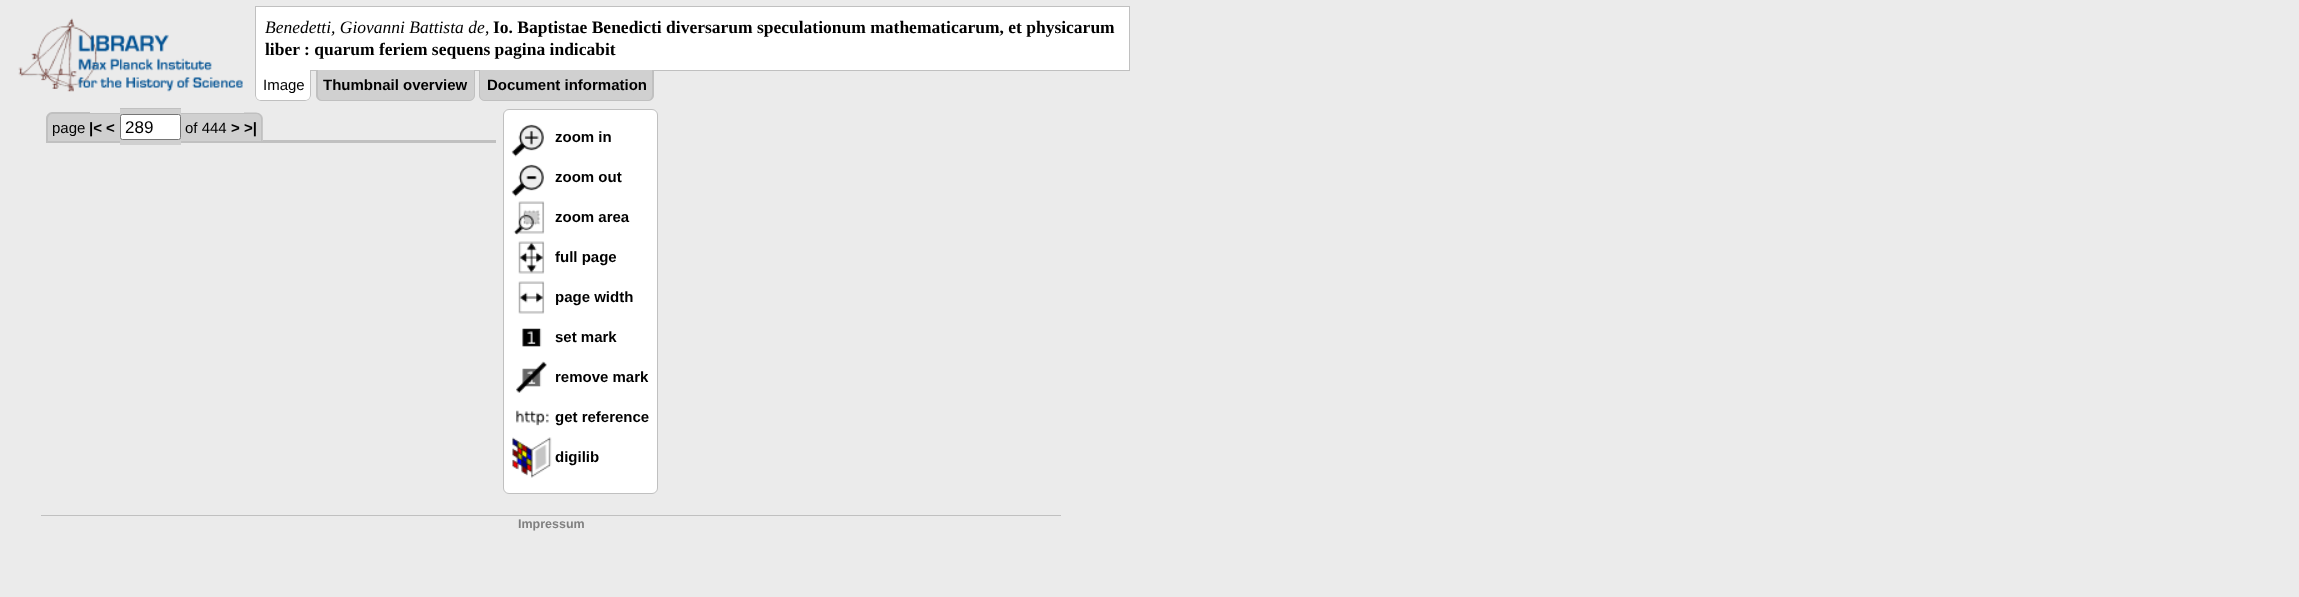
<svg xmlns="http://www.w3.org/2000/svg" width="2299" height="597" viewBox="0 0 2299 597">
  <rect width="100%" height="100%" fill="rgb(235,235,235)"/>
  <image x="18" y="18" width="225" height="74" href="pic1.png"/>
  <rect x="255.5" y="6.5" width="874" height="64" fill="rgb(255,255,255)" stroke="rgb(192,192,192)"/>
  <text x="265" y="33" font-family="Liberation Serif" font-size="17.5" font-style="italic" fill="rgb(0,0,0)">Benedetti, Giovanni Battista de</text>
  <text x="485" y="33" font-family="Liberation Serif" font-size="17.5" fill="rgb(0,0,0)">,</text>
  <g font-family="Liberation Serif" font-size="17.5" font-weight="bold" fill="rgb(0,0,0)">
    <text x="493" y="33">Io. Baptistae Benedicti diversarum speculationum mathematicarum, et physicarum</text>
    <text x="265" y="55">liber : quarum feriem sequens pagina indicabit</text>
  </g>
  <path d="M255 70H311V95C311 98.5 308.5 101 305 101H261C257.5 101 255 98.5 255 95Z" fill="rgb(255,255,255)"/>
  <path d="M255 70H311V95C311 98 308 101 305 101H261C258 101 255 98 255 95ZM256 70H310V95C310 98 308 100 305 100H261C258 100 256 98 256 95Z" fill="rgb(192,192,192)" fill-rule="evenodd"/>
  <text x="263" y="90" font-family="Liberation Sans" font-size="15" fill="rgb(0,0,0)">Image</text>
  <path d="M316 70H475V95C475 98.5 472.5 101 469 101H322C318.5 101 316 98.5 316 95Z" fill="rgb(208,208,208)"/>
  <path d="M316 70H475V95C475 98 472 101 469 101H322C319 101 316 98 316 95ZM318 70H474V95C474 98 472 100 469 100H322C320 100 318 98 318 95Z" fill="rgb(192,192,192)" fill-rule="evenodd"/>
  <text x="323" y="90" font-family="Liberation Sans" font-size="15" font-weight="bold" fill="rgb(0,0,0)">Thumbnail overview</text>
  <path d="M479 70H654V95C654 98.5 651.5 101 648 101H485C481.5 101 479 98.5 479 95Z" fill="rgb(208,208,208)"/>
  <path d="M479 70H654V95C654 98 651 101 648 101H485C482 101 479 98 479 95ZM480 70H652V95C652 98 650 100 648 100H485C482 100 480 98 480 95Z" fill="rgb(192,192,192)" fill-rule="evenodd"/>
  <text x="487" y="90" font-family="Liberation Sans" font-size="15" font-weight="bold" fill="rgb(0,0,0)">Document information</text>
  <rect x="46" y="140" width="450" height="3" fill="rgb(192,192,192)"/>
  <path d="M52 113H90V141H46V119C46 115.5 48.5 113 52 113Z" fill="rgb(208,208,208)"/>
  <path d="M52 112H90V141H46V119C46 115 49 112 52 112ZM52 114H90V141H48V119C48 116 50 114 52 114Z" fill="rgb(192,192,192)" fill-rule="evenodd"/>
  <rect x="90" y="114" width="13" height="27" fill="rgb(208,208,208)"/>
  <rect x="90" y="113" width="13" height="1" fill="rgb(192,192,192)"/>
  <rect x="103" y="113" width="3" height="28" fill="rgb(208,208,208)"/>
  <rect x="103" y="113" width="12" height="1" fill="rgb(192,192,192)"/>
  <rect x="106" y="114" width="9" height="27" fill="rgb(208,208,208)"/>
  <rect x="115" y="113" width="5" height="28" fill="rgb(208,208,208)"/>
  <rect x="115" y="113" width="5" height="1" fill="rgb(192,192,192)"/>
  <rect x="120" y="109" width="61" height="36" fill="rgb(208,208,208)"/>
  <rect x="120" y="108" width="61" height="1" fill="rgb(192,192,192)"/>
  <rect x="181" y="113" width="4" height="28" fill="rgb(208,208,208)"/>
  <rect x="181" y="113" width="59" height="1" fill="rgb(192,192,192)"/>
  <rect x="185" y="114" width="55" height="27" fill="rgb(208,208,208)"/>
  <rect x="240" y="113" width="4" height="28" fill="rgb(208,208,208)"/>
  <rect x="240" y="113" width="4" height="1" fill="rgb(192,192,192)"/>
  <path d="M244 113H257C260.5 113 263 115.5 263 119V141H244Z" fill="rgb(208,208,208)"/>
  <path d="M244 112.5H256C259.5 112.5 262.5 115.5 262.5 119V141H244ZM244 114H256C259 114 261 116 261 119V141H244Z" fill="rgb(192,192,192)" fill-rule="evenodd"/>
  <text x="52" y="133" font-family="Liberation Sans" font-size="15" fill="rgb(0,0,0)">page</text>
  <text x="89" y="133" font-family="Liberation Sans" font-size="15" font-weight="bold" fill="rgb(0,0,0)">|&lt; &lt;</text>
  <rect x="120.5" y="114.5" width="60" height="25" rx="2" fill="rgb(255,255,255)" stroke="rgb(118,118,118)"/>
  <text x="125" y="133" font-family="Liberation Sans" font-size="17" fill="rgb(0,0,0)">289</text>
  <text x="185" y="133" font-family="Liberation Sans" font-size="15" fill="rgb(0,0,0)">of 444</text>
  <text x="231" y="133" font-family="Liberation Sans" font-size="15" font-weight="bold" fill="rgb(0,0,0)">&gt; &gt;|</text>
  <rect x="503.5" y="109.5" width="154" height="384" rx="5.5" fill="rgb(255,255,255)" stroke="rgb(192,192,192)"/>
  <image x="511" y="124" width="33" height="33" href="pic2.png"/>
  <text x="555" y="142" font-family="Liberation Sans" font-size="15" font-weight="bold" fill="rgb(0,0,0)">zoom in</text>
  <image x="511" y="164" width="33" height="33" href="pic3.png"/>
  <text x="555" y="182" font-family="Liberation Sans" font-size="15" font-weight="bold" fill="rgb(0,0,0)">zoom out</text>
  <image x="513" y="201" width="32" height="34" href="pic4.png"/>
  <text x="555" y="222" font-family="Liberation Sans" font-size="15" font-weight="bold" fill="rgb(0,0,0)">zoom area</text>
  <image x="518" y="241" width="27" height="33" href="pic5.png"/>
  <text x="555" y="262" font-family="Liberation Sans" font-size="15" font-weight="bold" fill="rgb(0,0,0)">full page</text>
  <image x="518" y="281" width="27" height="33" href="pic6.png"/>
  <text x="555" y="302" font-family="Liberation Sans" font-size="15" font-weight="bold" fill="rgb(0,0,0)">page width</text>
  <image x="522" y="328" width="20" height="19" href="pic7.png"/>
  <text x="555" y="342" font-family="Liberation Sans" font-size="15" font-weight="bold" fill="rgb(0,0,0)">set mark</text>
  <image x="516" y="361" width="31" height="32" href="pic8.png"/>
  <text x="555" y="382" font-family="Liberation Sans" font-size="15" font-weight="bold" fill="rgb(0,0,0)">remove mark</text>
  <image x="516" y="410" width="33" height="16" href="pic9.png"/>
  <text x="555" y="422" font-family="Liberation Sans" font-size="15" font-weight="bold" fill="rgb(0,0,0)">get reference</text>
  <image x="512" y="437" width="40" height="41" href="pic10.png"/>
  <text x="555" y="462" font-family="Liberation Sans" font-size="15" font-weight="bold" fill="rgb(0,0,0)">digilib</text>
  <rect x="41" y="515" width="1020" height="1" fill="rgb(192,192,192)"/>
  <text x="518" y="528" font-family="Liberation Sans" font-size="12.5" font-weight="bold" fill="rgb(128,128,128)">Impressum</text>
</svg>
